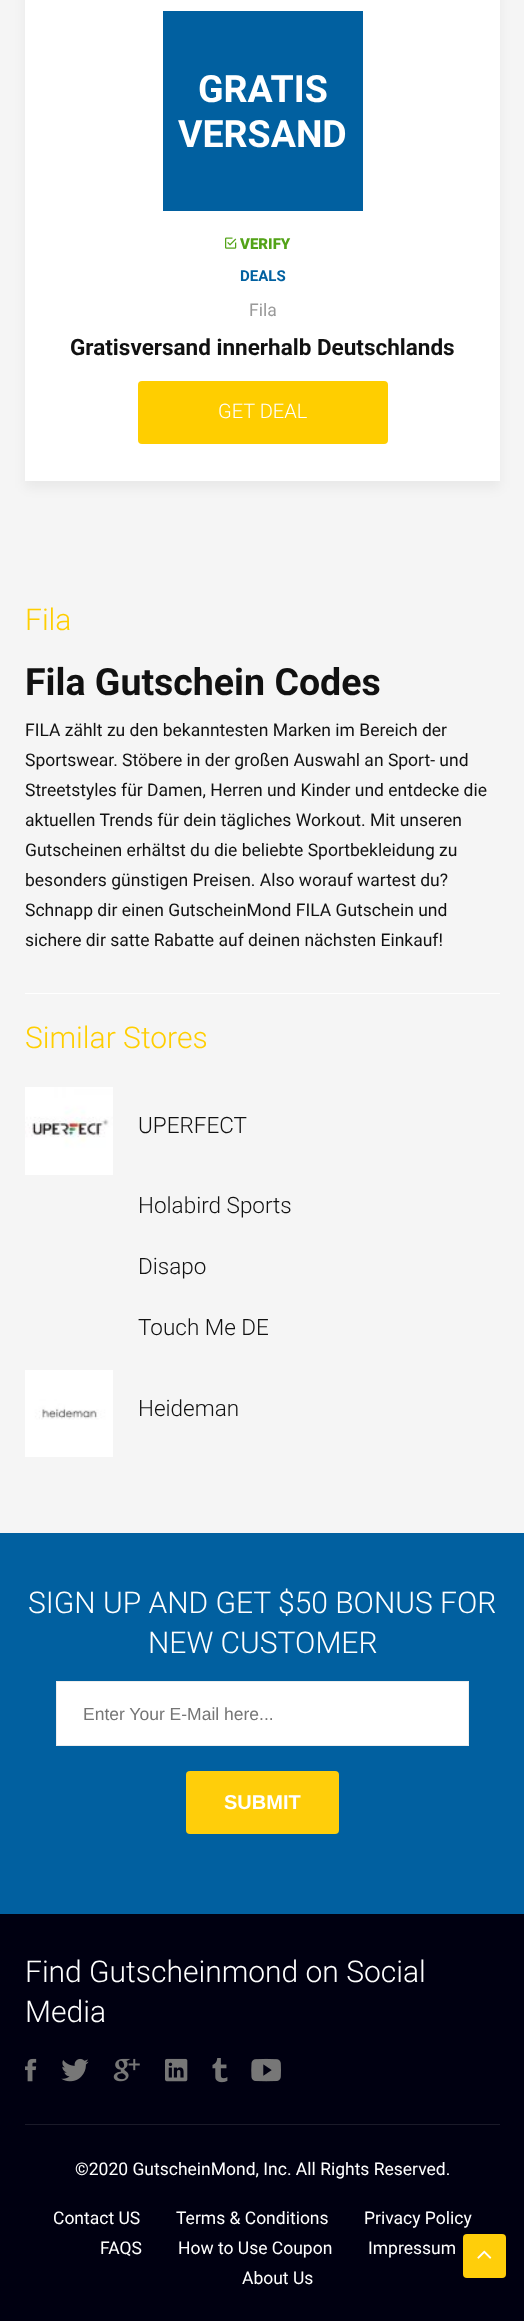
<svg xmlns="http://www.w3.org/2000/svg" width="524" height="2321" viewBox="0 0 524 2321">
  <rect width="100%" height="100%" fill="rgb(245,245,245)"/>
  <rect x="25" y="-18" width="475" height="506" fill="rgba(0,0,0,0.05)" filter="blur(6px)"/>
  <rect x="25" y="0" width="475" height="481" fill="rgb(255,255,255)"/>
  <rect x="163" y="11" width="200" height="200" fill="rgb(1,96,160)"/>
  <g font-family="Roboto" font-size="37.5" font-weight="bold" fill="rgb(255,255,255)">
    <text x="198" y="102">GRATIS</text>
    <text x="178" y="147">VERSAND</text>
  </g>
  <image x="225" y="237" width="12" height="12" href="pic1.png"/>
  <text x="240" y="249" font-family="Roboto" font-size="15" font-weight="900" fill="rgb(83,163,24)">VERIFY</text>
  <text x="240" y="281" font-family="Roboto" font-size="15" font-weight="bold" fill="rgb(1,96,160)">DEALS</text>
  <text x="249" y="316" font-family="Roboto" font-size="17.5" fill="rgb(153,153,153)">Fila</text>
  <text x="70" y="355" font-family="Roboto" font-size="22.5" font-weight="bold" fill="rgb(17,17,17)">Gratisversand innerhalb Deutschlands</text>
  <rect x="138" y="381" width="250" height="63" rx="4" fill="rgb(255,206,0)"/>
  <text x="218" y="418" font-family="Roboto" font-size="20" font-weight="300" fill="rgb(255,255,255)">GET DEAL</text>
  <rect x="25" y="993" width="475" height="1" fill="rgb(255,255,255)"/>
  <text x="25" y="630" font-family="Roboto" font-size="30" font-weight="300" fill="rgb(255,206,0)">Fila</text>
  <text x="25" y="695" font-family="Roboto" font-size="37.5" font-weight="bold" fill="rgb(17,17,17)">Fila Gutschein Codes</text>
  <g font-family="Roboto" font-size="17.5" fill="rgb(17,17,17)">
    <text>
      <tspan x="25" y="736">FILA zählt zu den bekanntesten Marken im Bereich der</tspan>
      <tspan x="25" y="766">Sportswear. Stöbere in der großen Auswahl an Sport- und</tspan>
      <tspan x="25" y="796">Streetstyles für Damen, Herren und Kinder und entdecke die</tspan>
      <tspan x="25" y="826">aktuellen Trends für dein tägliches Workout. Mit unseren</tspan>
      <tspan x="25" y="856">Gutscheinen erhältst du die beliebte Sportbekleidung zu</tspan>
      <tspan x="25" y="886">besonders günstigen Preisen. Also worauf wartest du?</tspan>
      <tspan x="25" y="916">Schnapp dir einen GutscheinMond FILA Gutschein und</tspan>
      <tspan x="25" y="946">sichere dir satte Rabatte auf deinen nächsten Einkauf!</tspan>
    </text>
  </g>
  <text x="25" y="1048" font-family="Roboto" font-size="30" font-weight="300" fill="rgb(255,206,0)">Similar Stores</text>
  <image x="25" y="1087" width="88" height="88" href="pic2.png"/>
  <g font-family="Roboto" font-size="22.5" font-weight="300" fill="rgb(17,17,17)">
    <text x="138" y="1133">UPERFECT</text>
    <text x="138" y="1213">Holabird Sports</text>
    <text x="138" y="1274">Disapo</text>
    <text x="138" y="1335">Touch Me DE</text>
  </g>
  <image x="25" y="1370" width="88" height="87" href="pic3.png"/>
  <text x="138" y="1416" font-family="Roboto" font-size="22.5" font-weight="300" fill="rgb(17,17,17)">Heideman</text>
  <rect x="0" y="1533" width="524" height="381" fill="rgb(1,96,160)"/>
  <g font-family="Roboto" font-size="30" font-weight="300" fill="rgb(255,255,255)">
    <text x="28" y="1613">SIGN UP AND GET $50 BONUS FOR</text>
    <text x="148" y="1653">NEW CUSTOMER</text>
  </g>
  <rect x="56.5" y="1681.5" width="412" height="64" fill="rgb(255,255,255)" stroke="rgb(238,238,238)"/>
  <text x="83" y="1720" font-family="Liberation Sans" font-size="17.5" fill="rgb(117,117,117)">Enter Your E-Mail here...</text>
  <rect x="186" y="1771" width="153" height="63" rx="4" fill="rgb(255,206,10)"/>
  <text x="224" y="1809" font-family="Liberation Sans" font-size="20" font-weight="bold" fill="rgb(255,255,255)">SUBMIT</text>
  <rect x="0" y="1914" width="524" height="407" fill="rgb(0,0,17)"/>
  <g font-family="Roboto" font-size="30" font-weight="300" fill="rgb(255,255,255)">
    <text>
      <tspan x="25" y="1982">Find Gutscheinmond on Social</tspan>
      <tspan x="25" y="2022">Media</tspan>
    </text>
  </g>
  <image x="25" y="2058" width="12" height="24" href="pic4.png"/>
  <image x="61" y="2058" width="28" height="24" href="pic5.png"/>
  <image x="113" y="2058" width="27" height="24" href="pic6.png"/>
  <image x="165" y="2058" width="23" height="24" href="pic7.png"/>
  <image x="212" y="2058" width="16" height="25" href="pic8.png"/>
  <image x="251" y="2058" width="30" height="24" href="pic9.png"/>
  <rect x="25" y="2124" width="475" height="1" fill="rgb(26,26,41)"/>
  <g font-family="Roboto" font-size="17.5" fill="rgb(255,255,255)">
    <text x="75" y="2175">©2020 GutscheinMond, Inc. All Rights Reserved.</text>
    <text x="53" y="2224">Contact US</text>
    <text x="176" y="2224">Terms &amp; Conditions</text>
    <text x="364" y="2224">Privacy Policy</text>
    <text x="100" y="2254">FAQS</text>
    <text x="178" y="2254">How to Use Coupon</text>
    <text x="368" y="2254">Impressum</text>
    <text x="242" y="2284">About Us</text>
  </g>
  <rect x="463" y="2234" width="43" height="44" rx="4" fill="rgb(255,206,10)"/>
  <image x="477" y="2250" width="15" height="9" href="pic10.png"/>
</svg>
